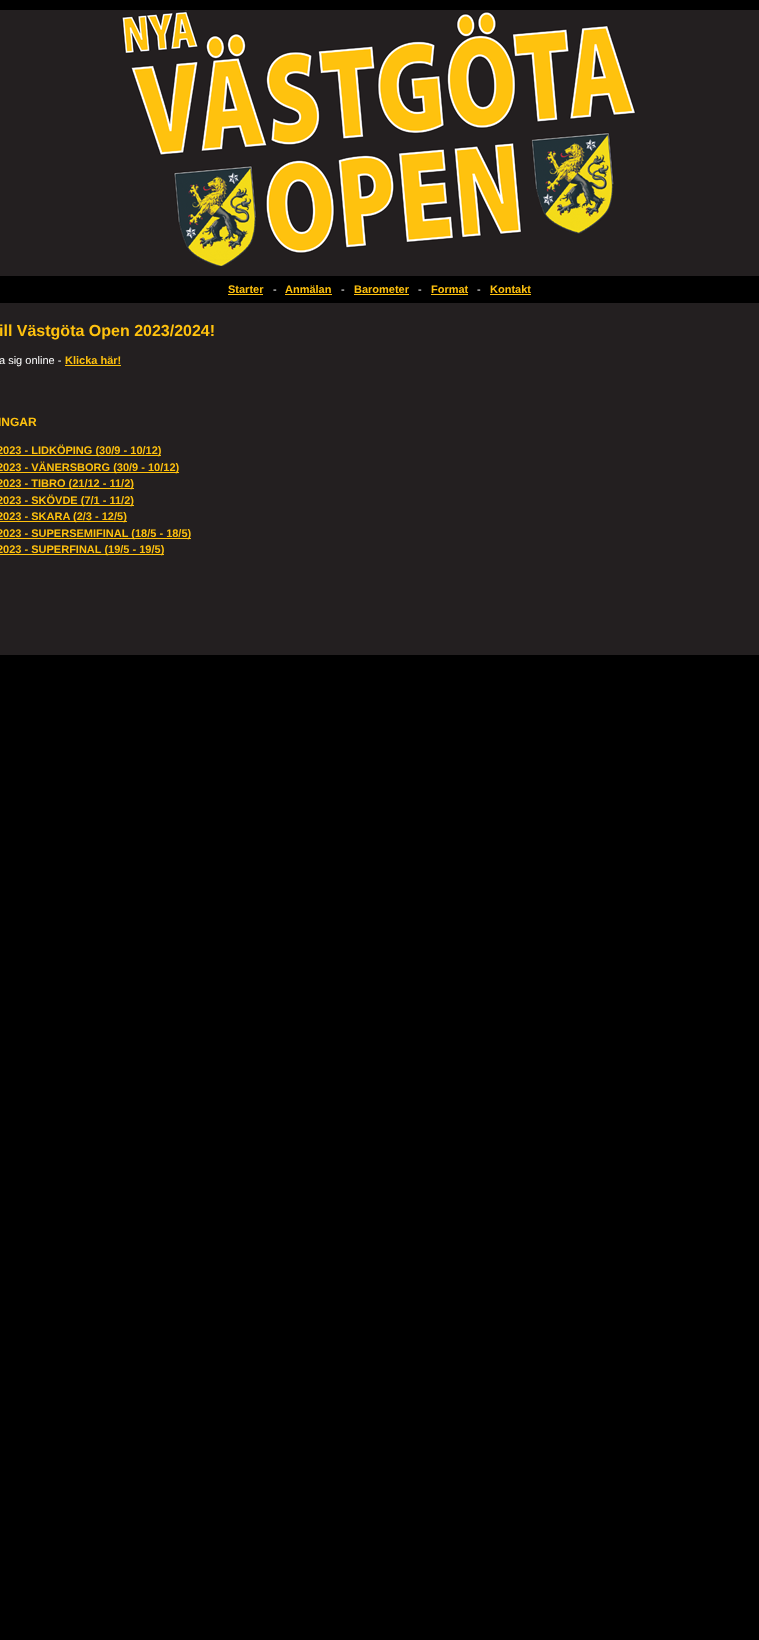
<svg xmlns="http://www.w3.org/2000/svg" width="759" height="1640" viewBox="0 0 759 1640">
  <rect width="100%" height="100%" fill="rgb(0,0,0)"/>
  <image x="0" y="10" width="759" height="256" href="pic1.png"/>
  <rect x="0" y="266" width="759" height="389" fill="rgb(35,31,32)"/>
  <rect x="0" y="276" width="759" height="27" fill="rgb(0,0,0)"/>
  <text x="228" y="293" font-family="Liberation Sans" font-size="11" font-weight="bold" fill="rgb(255,194,14)">Starter</text>
  <rect x="228" y="294" width="35" height="1" fill="rgb(255,194,14)"/>
  <text x="273" y="293" font-family="Liberation Sans" font-size="11" fill="rgb(255,255,255)">-</text>
  <text x="285" y="293" font-family="Liberation Sans" font-size="11" font-weight="bold" fill="rgb(255,194,14)">Anmälan</text>
  <rect x="285" y="294" width="47" height="1" fill="rgb(255,194,14)"/>
  <text x="341" y="293" font-family="Liberation Sans" font-size="11" fill="rgb(255,255,255)">-</text>
  <text x="354" y="293" font-family="Liberation Sans" font-size="11" font-weight="bold" fill="rgb(255,194,14)">Barometer</text>
  <rect x="354" y="294" width="55" height="1" fill="rgb(255,194,14)"/>
  <text x="418" y="293" font-family="Liberation Sans" font-size="11" fill="rgb(255,255,255)">-</text>
  <text x="431" y="293" font-family="Liberation Sans" font-size="11" font-weight="bold" fill="rgb(255,194,14)">Format</text>
  <rect x="431" y="294" width="37" height="1" fill="rgb(255,194,14)"/>
  <text x="477" y="293" font-family="Liberation Sans" font-size="11" fill="rgb(255,255,255)">-</text>
  <text x="490" y="293" font-family="Liberation Sans" font-size="11" font-weight="bold" fill="rgb(255,194,14)">Kontakt</text>
  <rect x="490" y="294" width="41" height="1" fill="rgb(255,194,14)"/>
  <text x="-1" y="336" font-family="Liberation Sans" font-size="16" font-weight="bold" fill="rgb(255,194,14)">ill Västgöta Open 2023/2024!</text>
  <text x="-1" y="364" font-family="Liberation Sans" font-size="11" fill="rgb(255,255,255)">a sig online -</text>
  <text x="65" y="364" font-family="Liberation Sans" font-size="11" font-weight="bold" fill="rgb(255,194,14)">Klicka här!</text>
  <rect x="65" y="365" width="56" height="1" fill="rgb(255,194,14)"/>
  <text x="-2" y="426" font-family="Liberation Sans" font-size="12" font-weight="bold" fill="rgb(255,194,14)">INGAR</text>
  <rect x="0" y="455" width="161" height="1" fill="rgb(255,194,14)"/>
  <text x="-3" y="454" font-family="Liberation Sans" font-size="11" font-weight="bold" fill="rgb(255,194,14)">2023 - LIDKÖPING (30/9 - 10/12)</text>
  <rect x="0" y="472" width="179" height="1" fill="rgb(255,194,14)"/>
  <text x="-3" y="471" font-family="Liberation Sans" font-size="11" font-weight="bold" fill="rgb(255,194,14)">2023 - VÄNERSBORG (30/9 - 10/12)</text>
  <rect x="0" y="488" width="134" height="1" fill="rgb(255,194,14)"/>
  <text x="-3" y="487" font-family="Liberation Sans" font-size="11" font-weight="bold" fill="rgb(255,194,14)">2023 - TIBRO (21/12 - 11/2)</text>
  <rect x="0" y="505" width="134" height="1" fill="rgb(255,194,14)"/>
  <text x="-3" y="504" font-family="Liberation Sans" font-size="11" font-weight="bold" fill="rgb(255,194,14)">2023 - SKÖVDE (7/1 - 11/2)</text>
  <rect x="0" y="521" width="127" height="1" fill="rgb(255,194,14)"/>
  <text x="-3" y="520" font-family="Liberation Sans" font-size="11" font-weight="bold" fill="rgb(255,194,14)">2023 - SKARA (2/3 - 12/5)</text>
  <rect x="0" y="538" width="191" height="1" fill="rgb(255,194,14)"/>
  <text x="-3" y="537" font-family="Liberation Sans" font-size="11" font-weight="bold" fill="rgb(255,194,14)">2023 - SUPERSEMIFINAL (18/5 - 18/5)</text>
  <rect x="0" y="554" width="164" height="1" fill="rgb(255,194,14)"/>
  <text x="-3" y="553" font-family="Liberation Sans" font-size="11" font-weight="bold" fill="rgb(255,194,14)">2023 - SUPERFINAL (19/5 - 19/5)</text>
</svg>
